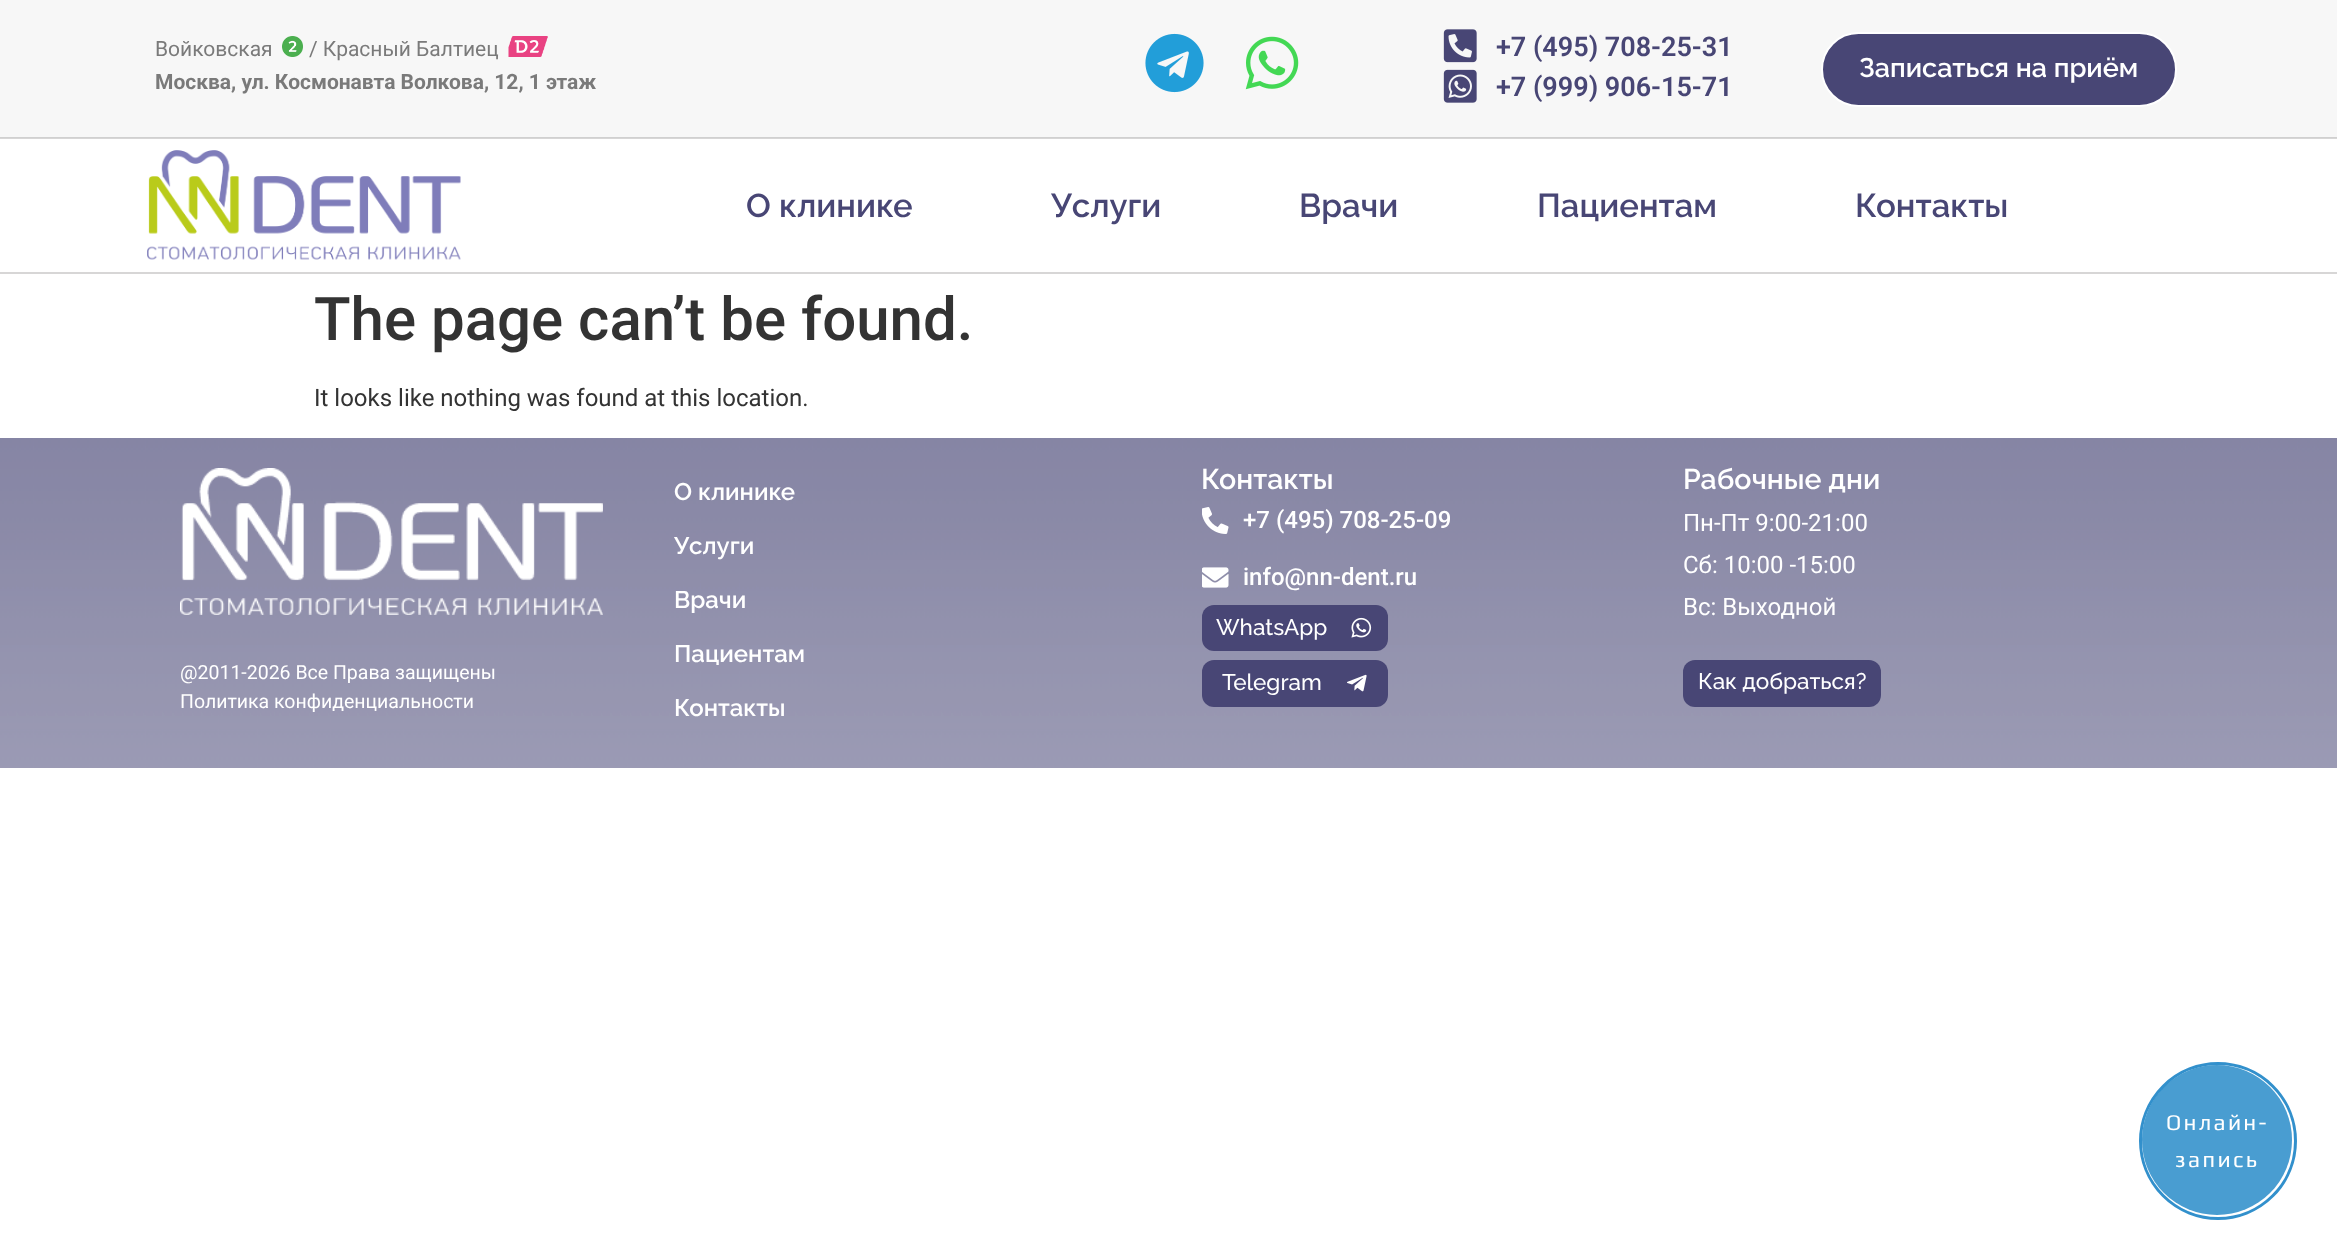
<svg xmlns="http://www.w3.org/2000/svg" width="2337" height="1259" viewBox="0 0 2337 1259">
  <rect width="100%" height="100%" fill="rgb(255,255,255)"/>
  <rect x="0" y="138" width="2337" height="1" fill="rgb(215,214,214)"/>
  <rect x="0" y="438" width="2337" height="330" fill="rgb(185,185,203)"/>
  <rect x="0" y="0" width="2337" height="137" fill="rgb(247,247,247)"/>
  <rect x="0" y="137" width="2337" height="1" fill="rgb(208,208,208)"/>
  <text x="155" y="56" font-family="Roboto" font-size="21" fill="rgb(122,122,122)">Войковская</text>
  <image x="282" y="36" width="21" height="21" href="pic1.png"/>
  <text x="309" y="56" font-family="Roboto" font-size="21" fill="rgb(122,122,122)">/ Красный Балтиец</text>
  <image x="508" y="36" width="40" height="21" href="pic2.png"/>
  <text x="155" y="89" font-family="Roboto" font-size="21" font-weight="bold" fill="rgb(122,122,122)">Москва, ул. Космонавта Волкова, 12, 1 этаж</text>
  <image x="1145" y="33" width="59" height="60" href="pic3.png"/>
  <image x="1245" y="36" width="54" height="54" href="pic4.png"/>
  <image x="1443" y="29" width="34" height="34" href="pic5.png"/>
  <text x="1496" y="56" font-family="Roboto" font-size="27" font-weight="600" fill="rgb(72,70,117)">+7 (495) 708-25-31</text>
  <image x="1443" y="69" width="34" height="34" href="pic6.png"/>
  <text x="1496" y="96" font-family="Roboto" font-size="27" font-weight="600" fill="rgb(72,70,117)">+7 (999) 906-15-71</text>
  <rect x="1822" y="33" width="354" height="73" rx="36.5" fill="rgb(72,70,117)" stroke="rgb(255,255,255)" stroke-width="2"/>
  <text x="1859" y="77" font-family="Raleway" font-size="27" font-weight="600" fill="rgb(255,255,255)">Записаться на приём</text>
  <rect x="0" y="272" width="2337" height="2" fill="rgb(215,214,214)"/>
  <image x="147" y="150" width="314" height="110" href="pic7.png"/>
  <g font-family="Raleway" font-size="33" font-weight="600" fill="rgb(72,70,117)">
    <text x="746" y="217">О клинике</text>
    <text x="1051" y="217">Услуги</text>
    <text x="1299" y="217">Врачи</text>
    <text x="1537" y="217">Пациентам</text>
    <text x="1855" y="217">Контакты</text>
  </g>
  <text x="314" y="340" font-family="Roboto" font-size="60" font-weight="500" fill="rgb(51,51,51)">The page can’t be found.</text>
  <text x="314" y="406" font-family="Roboto" font-size="24" fill="rgb(51,51,51)">It looks like nothing was found at this location.</text>
  <image x="0" y="438" width="2337" height="330" href="pic8.png"/>
  <image x="180" y="468" width="423" height="147" href="pic9.png"/>
  <g font-family="Roboto" font-size="19.5" fill="rgb(255,255,255)">
    <text>
      <tspan x="180" y="679">@2011-2026 Все Права защищены</tspan>
      <tspan x="180" y="708">Политика конфиденциальности</tspan>
    </text>
  </g>
  <g font-family="Raleway" font-size="24" font-weight="600" fill="rgb(255,255,255)">
    <text x="674" y="500">О клинике</text>
    <text x="674" y="554">Услуги</text>
    <text x="674" y="608">Врачи</text>
    <text x="674" y="662">Пациентам</text>
    <text x="674" y="716">Контакты</text>
  </g>
  <text x="1201" y="489" font-family="Raleway" font-size="28.5" font-weight="600" fill="rgb(255,255,255)">Контакты</text>
  <image x="1202" y="507" width="27" height="27" href="pic10.png"/>
  <text x="1243" y="528" font-family="Roboto" font-size="24" font-weight="500" fill="rgb(255,255,255)">+7 (495) 708-25-09</text>
  <image x="1202" y="567" width="27" height="21" href="pic11.png"/>
  <text x="1243" y="585" font-family="Roboto" font-size="24" font-weight="500" fill="rgb(255,255,255)">info@nn-dent.ru</text>
  <rect x="1202" y="605" width="186" height="46" rx="12" fill="rgb(72,70,117)"/>
  <text x="1216" y="635" font-family="Raleway" font-size="22.5" font-weight="500" fill="rgb(255,255,255)">WhatsApp</text>
  <image x="1351" y="617" width="21" height="21" href="pic12.png"/>
  <rect x="1202" y="660" width="186" height="47" rx="12" fill="rgb(72,70,117)"/>
  <text x="1222" y="690" font-family="Raleway" font-size="22.5" font-weight="500" fill="rgb(255,255,255)">Telegram</text>
  <image x="1347" y="674" width="20" height="18" href="pic13.png"/>
  <text x="1683" y="489" font-family="Raleway" font-size="28.5" font-weight="600" fill="rgb(255,255,255)">Рабочные дни</text>
  <g font-family="Roboto" font-size="24" fill="rgb(255,255,255)">
    <text>
      <tspan x="1683" y="531">Пн-Пт 9:00-21:00</tspan>
      <tspan x="1683" y="573">Сб: 10:00 -15:00</tspan>
      <tspan x="1683" y="615">Вс: Выходной</tspan>
    </text>
  </g>
  <rect x="1683" y="660" width="198" height="47" rx="12" fill="rgb(72,70,117)"/>
  <text x="1698" y="689" font-family="Raleway" font-size="22.5" font-weight="500" fill="rgb(255,255,255)">Как добраться?</text>
  <circle cx="2217" cy="1140" r="75" fill="rgb(73,157,209)"/>
  <circle cx="2218" cy="1141" r="77.5" fill="none" stroke="rgba(28,132,198,0.9)" stroke-width="3"/>
  <g font-family="Play" font-size="22.5" letter-spacing="2.25" fill="rgb(255,255,255)">
    <text x="2166" y="1130">Онлайн-</text>
    <text x="2175" y="1167">запись</text>
  </g>
</svg>
